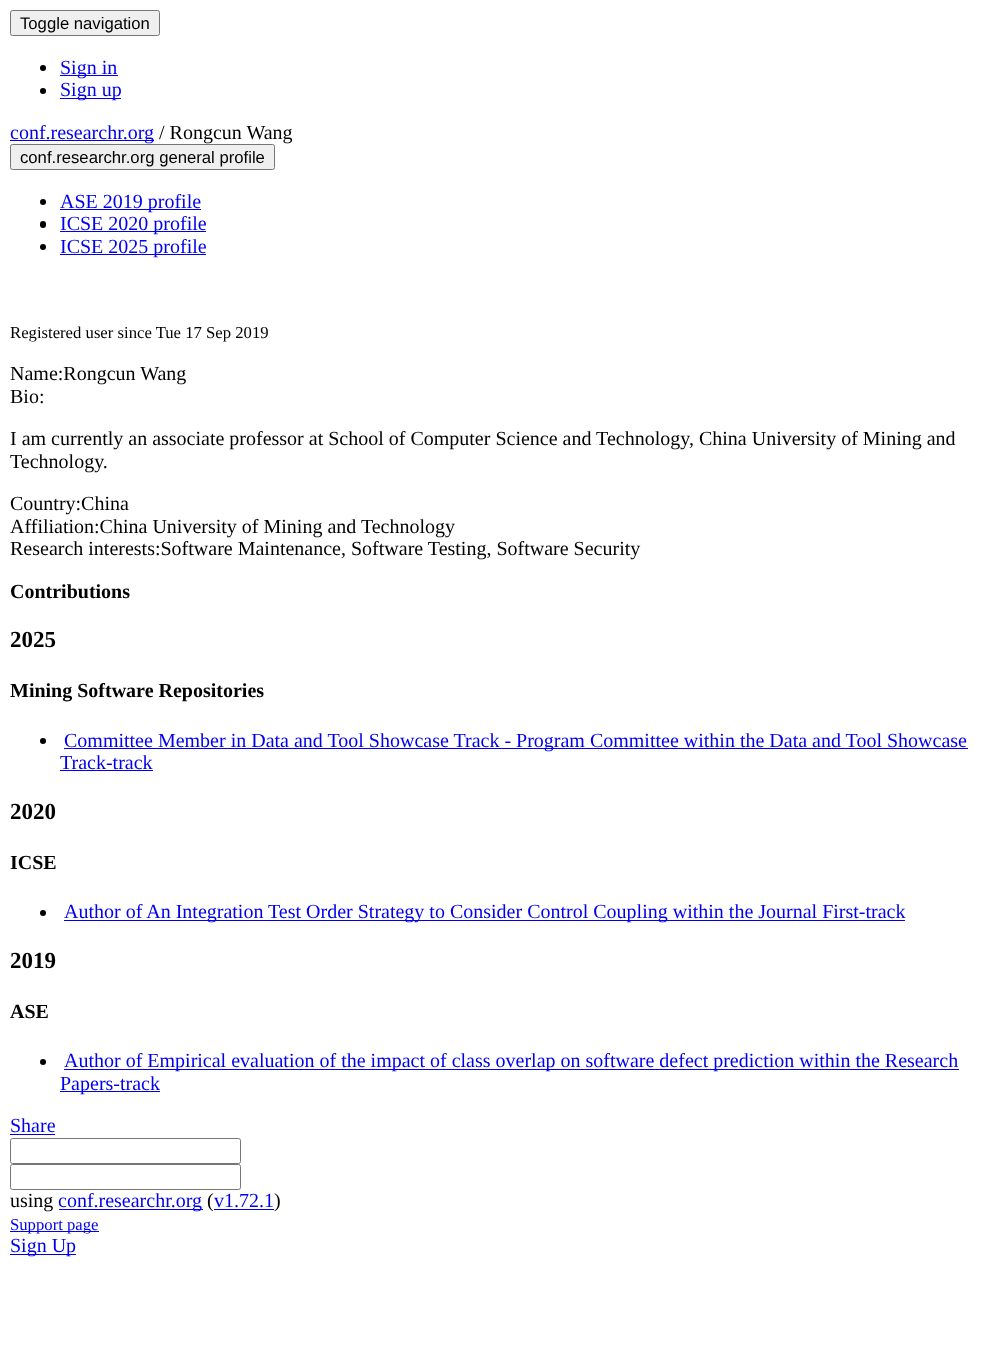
<svg xmlns="http://www.w3.org/2000/svg" width="992" height="1350" viewBox="0 0 992 1350">
  <rect width="100%" height="100%" fill="rgb(255,255,255)"/>
  <rect x="10.5" y="10.5" width="149" height="25" rx="2" fill="rgb(239,239,239)" stroke="rgb(118,118,118)"/>
  <text x="20" y="29" font-family="Liberation Sans" font-size="16.7" fill="rgb(0,0,0)">Toggle navigation</text>
  <circle cx="43" cy="68" r="3" fill="rgb(0,0,0)"/>
  <rect x="60" y="75" width="58" height="1" fill="rgb(0,0,238)"/>
  <text x="60" y="74" font-family="Liberation Serif" font-size="20" fill="rgb(0,0,238)">Sign in</text>
  <circle cx="43" cy="91" r="3" fill="rgb(0,0,0)"/>
  <rect x="60" y="98" width="61" height="1" fill="rgb(0,0,238)"/>
  <text x="60" y="96" font-family="Liberation Serif" font-size="20" fill="rgb(0,0,238)">Sign up</text>
  <rect x="10" y="140" width="144" height="1" fill="rgb(0,0,238)"/>
  <text x="10" y="139" font-family="Liberation Serif" font-size="20" fill="rgb(0,0,238)">conf.researchr.org</text>
  <text x="159" y="139" font-family="Liberation Serif" font-size="20" fill="rgb(0,0,0)">/ Rongcun Wang</text>
  <rect x="10.5" y="144.5" width="264" height="25" rx="2" fill="rgb(239,239,239)" stroke="rgb(118,118,118)"/>
  <text x="20" y="163" font-family="Liberation Sans" font-size="16.7" fill="rgb(0,0,0)">conf.researchr.org general profile</text>
  <circle cx="43" cy="202" r="3" fill="rgb(0,0,0)"/>
  <rect x="60" y="209" width="141" height="1" fill="rgb(0,0,238)"/>
  <text x="60" y="208" font-family="Liberation Serif" font-size="20" fill="rgb(0,0,238)">ASE 2019 profile</text>
  <rect x="40" y="221" width="6" height="7" rx="3" fill="rgb(0,0,0)"/>
  <rect x="60" y="231" width="146" height="1" fill="rgb(0,0,238)"/>
  <text x="60" y="230" font-family="Liberation Serif" font-size="20" fill="rgb(0,0,238)">ICSE 2020 profile</text>
  <circle cx="43" cy="247" r="3" fill="rgb(0,0,0)"/>
  <rect x="60" y="254" width="146" height="1" fill="rgb(0,0,238)"/>
  <text x="60" y="253" font-family="Liberation Serif" font-size="20" fill="rgb(0,0,238)">ICSE 2025 profile</text>
  <text x="10" y="338" font-family="Liberation Serif" font-size="16.7" fill="rgb(0,0,0)">Registered user since Tue 17 Sep 2019</text>
  <g font-family="Liberation Serif" font-size="20" fill="rgb(0,0,0)">
    <text>
      <tspan x="10" y="380">Name:Rongcun Wang</tspan>
      <tspan x="10" y="403">Bio:</tspan>
    </text>
    <text>
      <tspan x="10" y="445">I am currently an associate professor at School of Computer Science and Technology, China University of Mining and</tspan>
      <tspan x="10" y="468">Technology.</tspan>
    </text>
    <text>
      <tspan x="10" y="510">Country:China</tspan>
      <tspan x="10" y="533">Affiliation:China University of Mining and Technology</tspan>
      <tspan x="10" y="555">Research interests:Software Maintenance, Software Testing, Software Security</tspan>
    </text>
  </g>
  <text x="10" y="598" font-family="Liberation Serif" font-size="20" font-weight="bold" fill="rgb(0,0,0)">Contributions</text>
  <text x="10" y="647" font-family="Liberation Serif" font-size="23" font-weight="bold" fill="rgb(0,0,0)">2025</text>
  <text x="10" y="697" font-family="Liberation Serif" font-size="20" font-weight="bold" fill="rgb(0,0,0)">Mining Software Repositories</text>
  <circle cx="43" cy="741" r="3" fill="rgb(0,0,0)"/>
  <rect x="64" y="748" width="904" height="1" fill="rgb(0,0,238)"/>
  <g font-family="Liberation Serif" font-size="20" fill="rgb(0,0,238)">
    <text x="64" y="747">Committee Member in Data and Tool Showcase Track - Program Committee within the Data and Tool Showcase</text>
    <text x="60" y="769">Track-track</text>
  </g>
  <rect x="60" y="770" width="93" height="1" fill="rgb(0,0,238)"/>
  <text x="10" y="819" font-family="Liberation Serif" font-size="23" font-weight="bold" fill="rgb(0,0,0)">2020</text>
  <text x="10" y="869" font-family="Liberation Serif" font-size="20" font-weight="bold" fill="rgb(0,0,0)">ICSE</text>
  <circle cx="43" cy="913" r="3" fill="rgb(0,0,0)"/>
  <rect x="64" y="920" width="841" height="1" fill="rgb(0,0,238)"/>
  <text x="64" y="918" font-family="Liberation Serif" font-size="20" fill="rgb(0,0,238)">Author of An Integration Test Order Strategy to Consider Control Coupling within the Journal First-track</text>
  <text x="10" y="968" font-family="Liberation Serif" font-size="23" font-weight="bold" fill="rgb(0,0,0)">2019</text>
  <text x="10" y="1018" font-family="Liberation Serif" font-size="20" font-weight="bold" fill="rgb(0,0,0)">ASE</text>
  <circle cx="43" cy="1062" r="3" fill="rgb(0,0,0)"/>
  <rect x="64" y="1069" width="895" height="1" fill="rgb(0,0,238)"/>
  <text x="64" y="1067" font-family="Liberation Serif" font-size="20" fill="rgb(0,0,238)">Author of Empirical evaluation of the impact of class overlap on software defect prediction within the Research</text>
  <rect x="60" y="1091" width="100" height="1" fill="rgb(0,0,238)"/>
  <g font-family="Liberation Serif" font-size="20" fill="rgb(0,0,238)">
    <text x="60" y="1090">Papers-track</text>
    <text x="10" y="1132">Share</text>
  </g>
  <rect x="10" y="1134" width="45" height="1" fill="rgb(0,0,238)"/>
  <rect x="10.5" y="1138.5" width="230" height="25" rx="2" fill="none" stroke="rgb(118,118,118)"/>
  <rect x="10.5" y="1164.5" width="230" height="25" rx="2" fill="none" stroke="rgb(118,118,118)"/>
  <text x="10" y="1207" font-family="Liberation Serif" font-size="20" fill="rgb(0,0,0)">using</text>
  <rect x="59" y="1209" width="144" height="1" fill="rgb(0,0,238)"/>
  <text x="58" y="1207" font-family="Liberation Serif" font-size="20" fill="rgb(0,0,238)">conf.researchr.org</text>
  <text x="207" y="1207" font-family="Liberation Serif" font-size="20" fill="rgb(0,0,0)">(</text>
  <text x="214" y="1207" font-family="Liberation Serif" font-size="20" fill="rgb(0,0,238)">v1.72.1</text>
  <rect x="214" y="1209" width="60" height="1" fill="rgb(0,0,238)"/>
  <text x="274" y="1207" font-family="Liberation Serif" font-size="20" fill="rgb(0,0,0)">)</text>
  <rect x="10" y="1231" width="89" height="1" fill="rgb(0,0,238)"/>
  <text x="10" y="1230" font-family="Liberation Serif" font-size="16.7" fill="rgb(0,0,238)">Support page</text>
  <rect x="10" y="1254" width="66" height="1" fill="rgb(0,0,238)"/>
  <text x="10" y="1252" font-family="Liberation Serif" font-size="20" fill="rgb(0,0,238)">Sign Up</text>
</svg>
